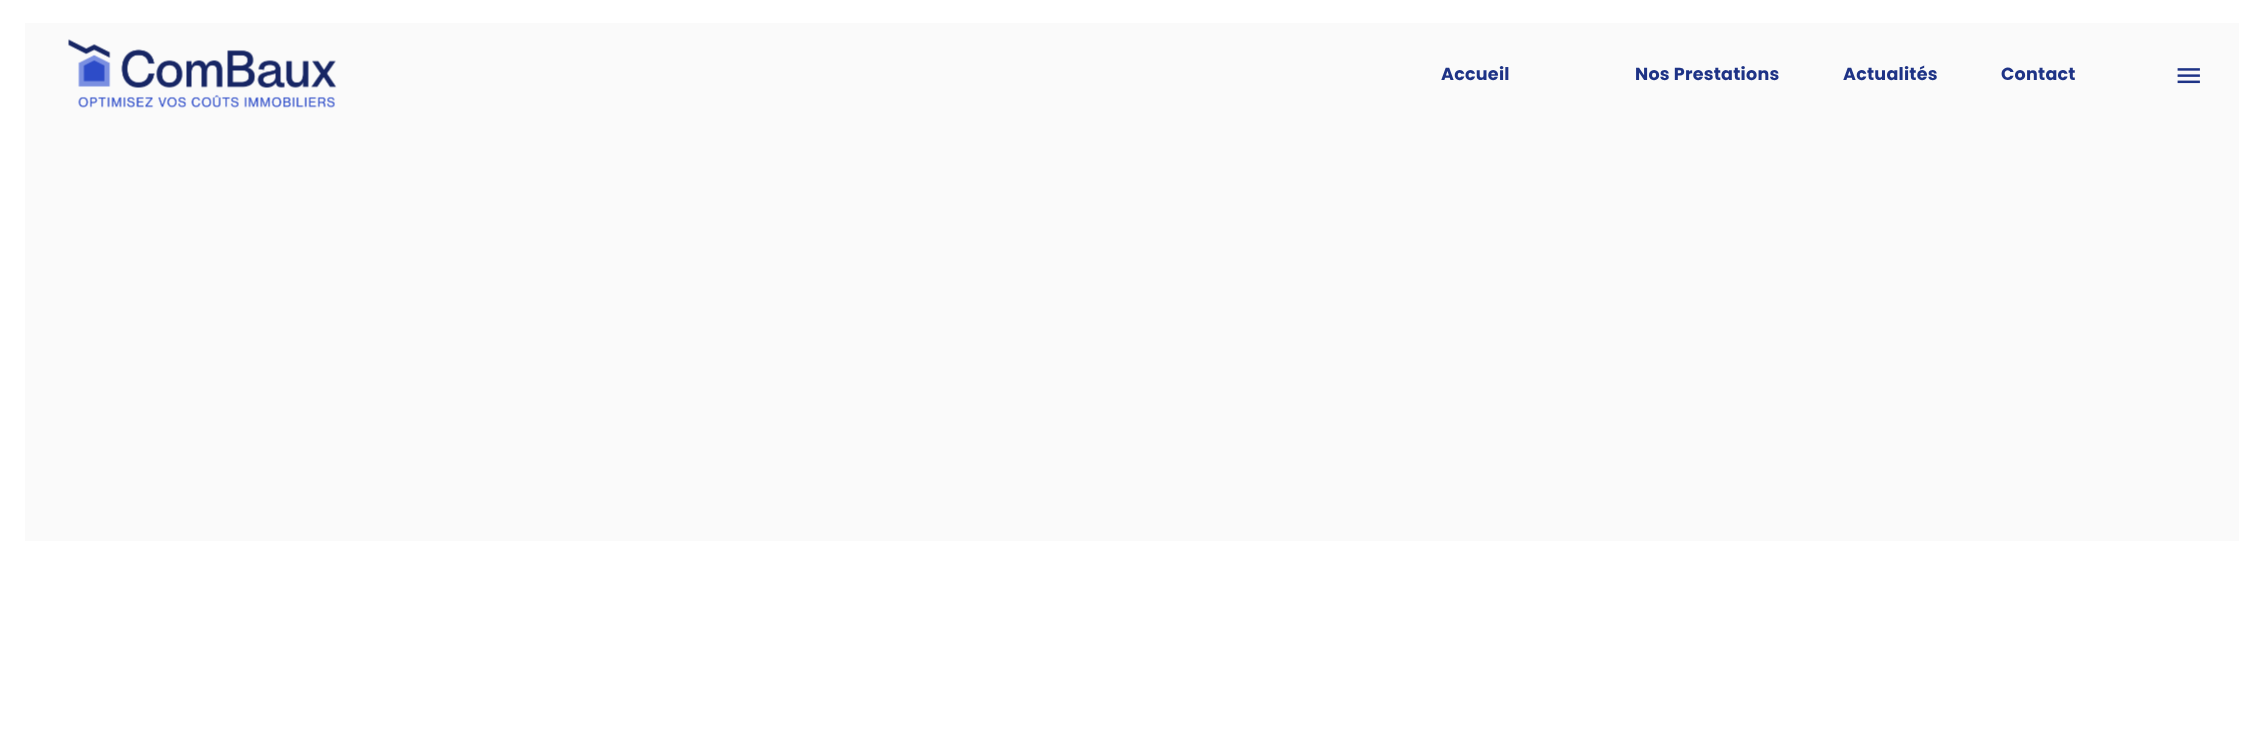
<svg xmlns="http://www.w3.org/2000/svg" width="2263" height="733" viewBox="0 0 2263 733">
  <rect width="100%" height="100%" fill="rgb(255,255,255)"/>
  <rect x="25" y="23" width="2214" height="518" fill="rgb(250,250,250)"/>
  <image x="68" y="39" width="269" height="69" href="pic1.png"/>
  <g font-family="Poppins" font-size="17.5" font-weight="bold" letter-spacing="0.25" fill="rgb(30,51,134)">
    <text x="1441" y="80">Accueil</text>
    <text x="1635" y="80">Nos Prestations</text>
    <text x="1843" y="80">Actualités</text>
    <text x="2001" y="80">Contact</text>
  </g>
  <image x="2177" y="68" width="23" height="16" href="pic2.png"/>
</svg>
